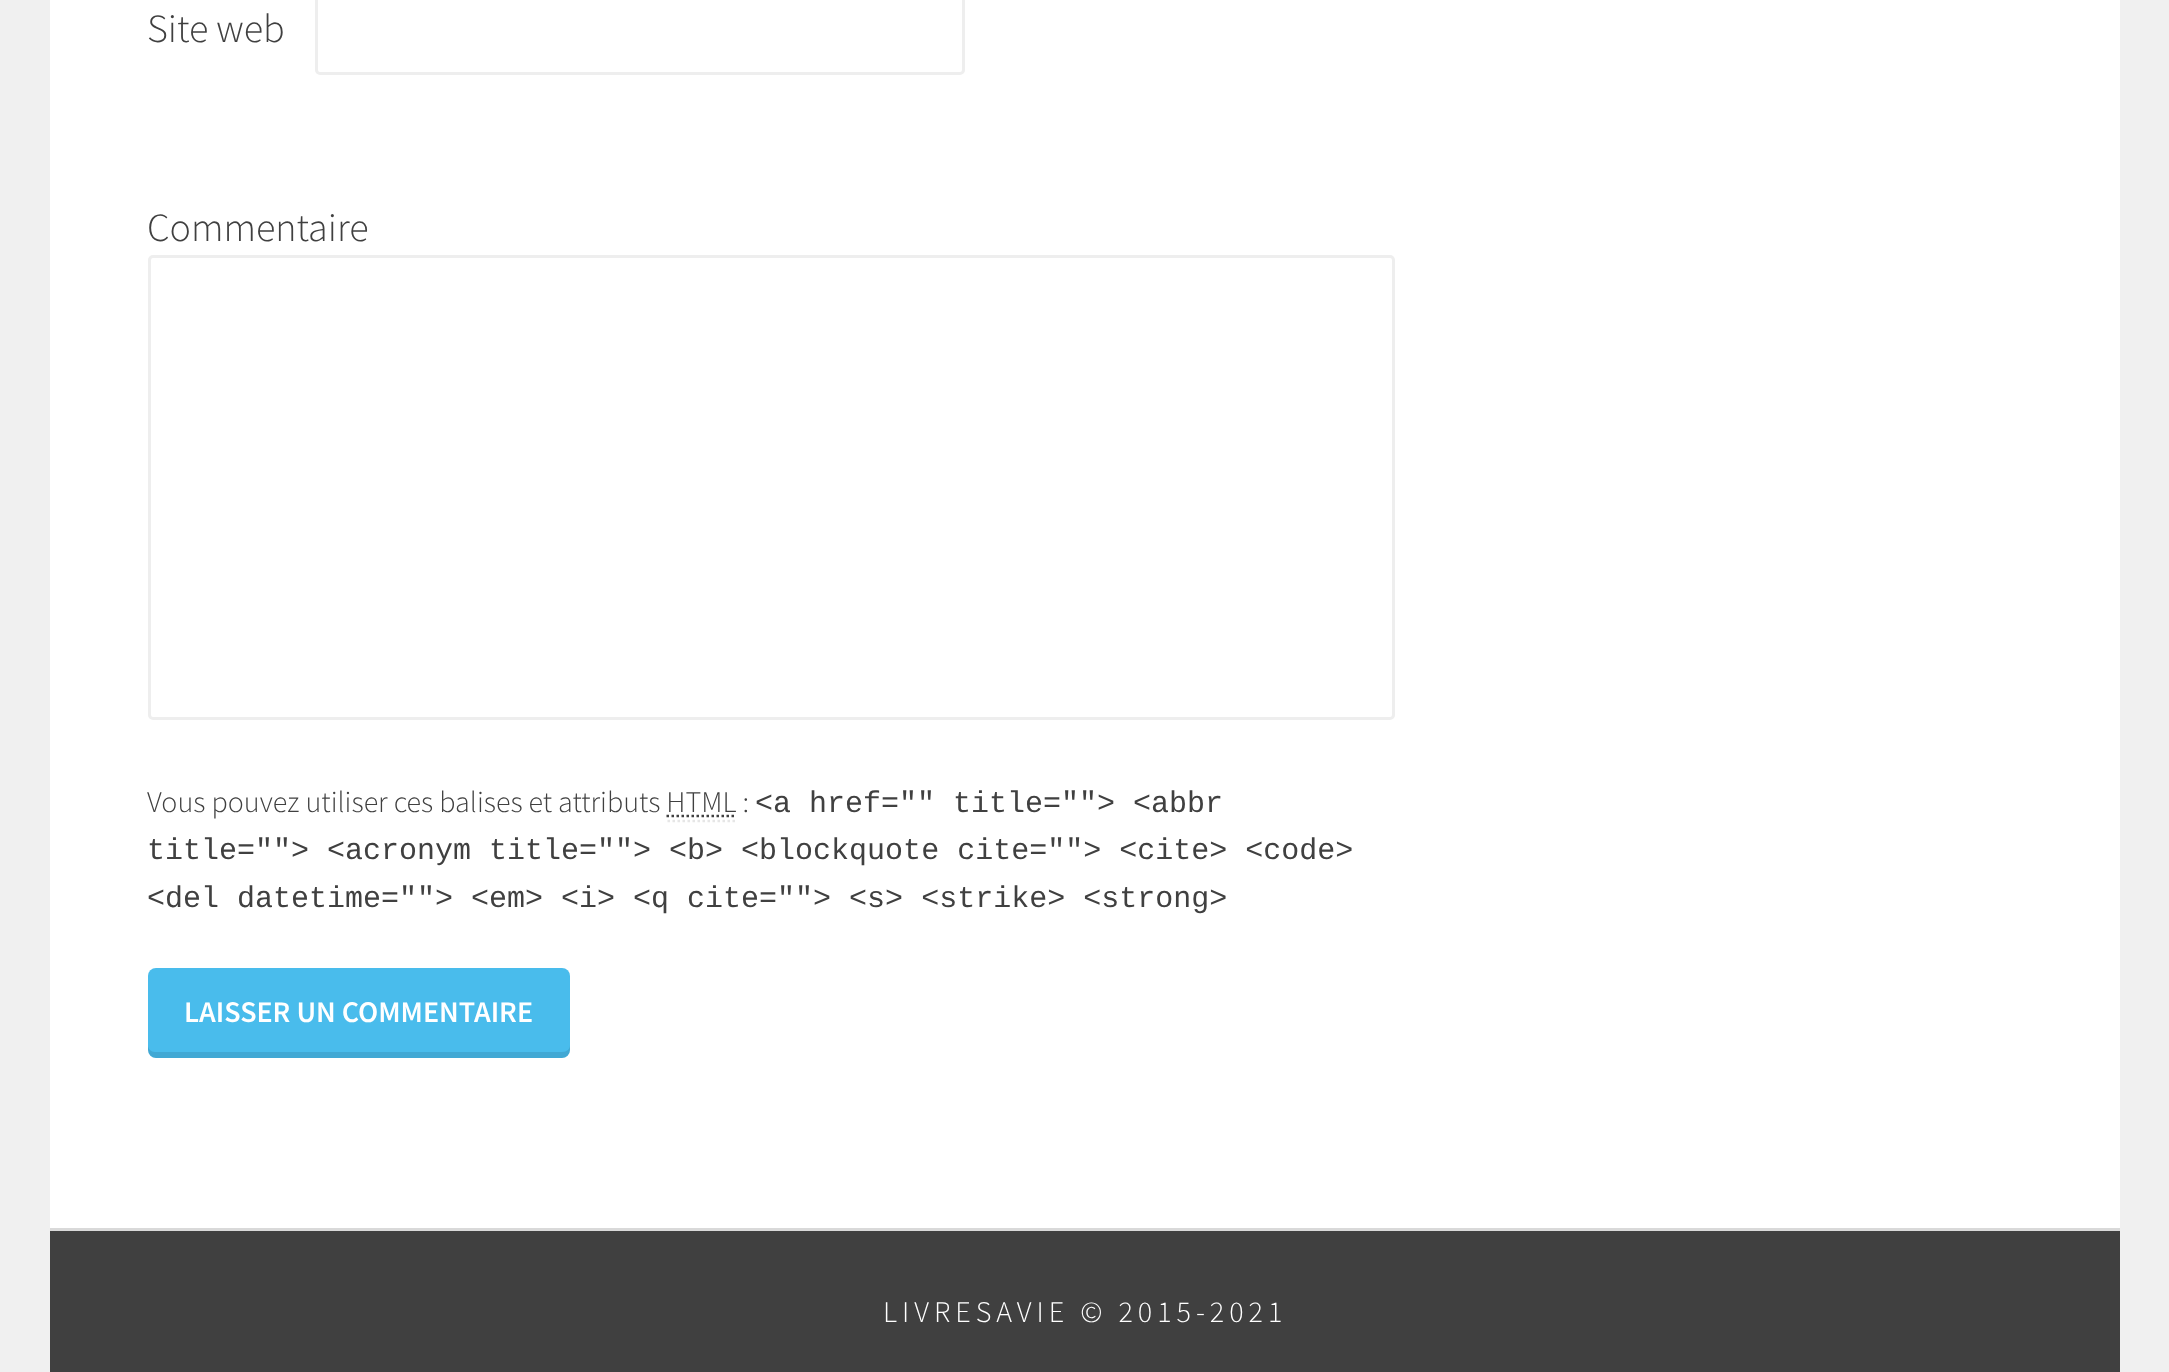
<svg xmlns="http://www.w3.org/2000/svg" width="2169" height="1372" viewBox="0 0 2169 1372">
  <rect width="100%" height="100%" fill="rgb(240,240,240)"/>
  <rect x="50" y="0" width="2070" height="1228" fill="rgb(255,255,255)"/>
  <text x="147" y="42" font-family="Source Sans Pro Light" font-size="40" font-weight="300" fill="rgb(64,64,64)">Site web</text>
  <rect x="316.5" y="-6.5" width="647" height="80" rx="3.5" fill="none" stroke="rgb(238,238,238)" stroke-width="3"/>
  <text x="147" y="241" font-family="Source Sans Pro Light" font-size="40" font-weight="300" fill="rgb(64,64,64)">Commentaire</text>
  <rect x="149.5" y="256.5" width="1244" height="462" rx="3.5" fill="none" stroke="rgb(238,238,238)" stroke-width="3"/>
  <text x="147" y="812" font-family="Source Sans Pro Light" font-size="30" font-weight="300" fill="rgb(64,64,64)">Vous pouvez utiliser ces balises et attributs HTML :</text>
  <text x="755" y="812" font-family="Liberation Mono" font-size="30" fill="rgb(64,64,64)">&lt;a href="" title=""&gt; &lt;abbr</text>
  <path d="M666.5 816H736.5" fill="none" stroke="rgb(64,64,64)" stroke-width="2.5" stroke-dasharray="2.5 2.5"/>
  <path d="M667.5 821H737.5" fill="none" stroke="rgb(230,230,230)" stroke-width="2.5" stroke-dasharray="2.5 2.5"/>
  <g font-family="Liberation Mono" font-size="30" fill="rgb(64,64,64)">
    <text>
      <tspan x="147" y="859">title=""&gt; &lt;acronym title=""&gt; &lt;b&gt; &lt;blockquote cite=""&gt; &lt;cite&gt; &lt;code&gt;</tspan>
      <tspan x="147" y="907">&lt;del datetime=""&gt; &lt;em&gt; &lt;i&gt; &lt;q cite=""&gt; &lt;s&gt; &lt;strike&gt; &lt;strong&gt;</tspan>
    </text>
  </g>
  <rect x="148" y="968" width="422" height="90" rx="8" fill="rgb(73,188,236)"/>
  <path d="M148 1045V1050C148 1054 152 1058 156 1058H562C566 1058 570 1054 570 1050V1045C570 1049 567 1052 562 1052H155C151 1052 148 1049 148 1045Z" fill="rgba(0,0,0,0.1)"/>
  <text x="184" y="1022" font-family="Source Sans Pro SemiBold" font-size="30" font-weight="600" fill="rgb(255,255,255)">LAISSER UN COMMENTAIRE</text>
  <rect x="50" y="1231" width="2070" height="141" fill="rgb(64,64,64)"/>
  <rect x="50" y="1228" width="2070" height="3" fill="rgb(217,217,217)"/>
  <text x="883" y="1322" font-family="Source Sans Pro Light" font-size="30" font-weight="300" letter-spacing="5" fill="rgb(255,255,255)">LIVRESAVIE © 2015-2021</text>
</svg>
